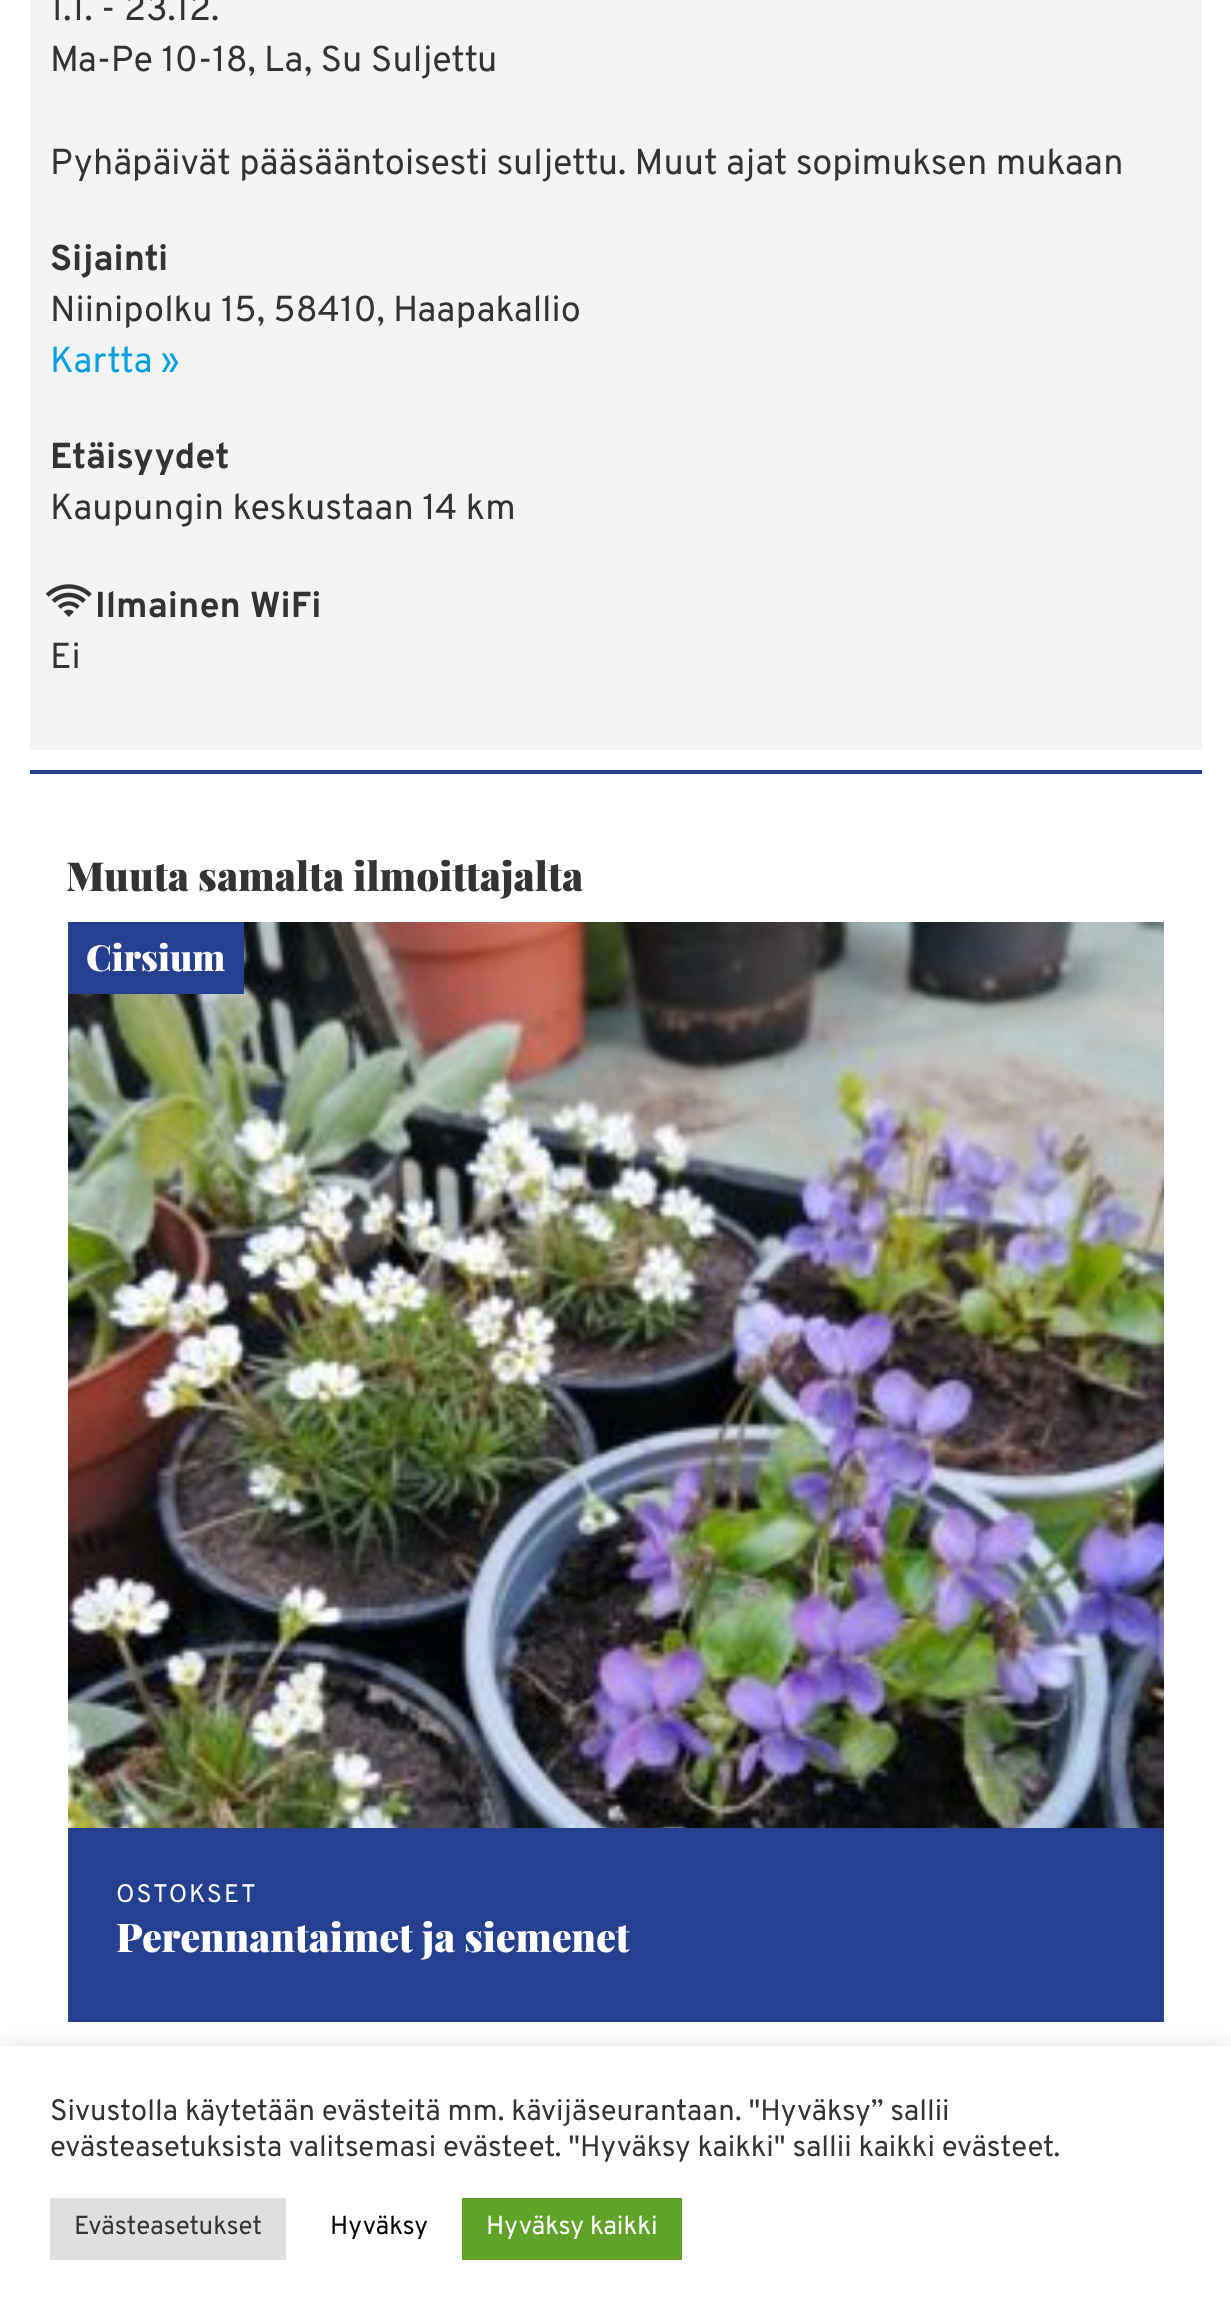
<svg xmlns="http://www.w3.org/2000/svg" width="1231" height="2319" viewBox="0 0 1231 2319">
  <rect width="100%" height="100%" fill="rgb(255,255,255)"/>
  <rect x="30" y="0" width="1172" height="750" fill="rgb(244,244,244)"/>
  <g font-family="Overpass" font-size="36" fill="rgb(51,51,51)">
    <text>
      <tspan x="50" y="20">1.1. - 23.12.</tspan>
      <tspan x="50" y="71">Ma-Pe 10-18, La, Su Suljettu</tspan>
    </text>
    <text x="50" y="174">Pyhäpäivät pääsääntoisesti suljettu. Muut ajat sopimuksen mukaan</text>
  </g>
  <text x="50" y="270" font-family="Overpass" font-size="36" font-weight="bold" fill="rgb(51,51,51)">Sijainti</text>
  <text x="50" y="321" font-family="Overpass" font-size="36" fill="rgb(51,51,51)">Niinipolku 15, 58410, Haapakallio</text>
  <text x="50" y="372" font-family="Overpass" font-size="36" fill="rgb(0,159,227)">Kartta »</text>
  <text x="50" y="468" font-family="Overpass" font-size="36" font-weight="bold" fill="rgb(51,51,51)">Etäisyydet</text>
  <text x="50" y="519" font-family="Overpass" font-size="36" fill="rgb(51,51,51)">Kaupungin keskustaan 14 km</text>
  <image x="45" y="584" width="47" height="33" href="pic1.png"/>
  <text x="95" y="617" font-family="Overpass" font-size="36" font-weight="bold" fill="rgb(51,51,51)">Ilmainen WiFi</text>
  <text x="50" y="668" font-family="Overpass" font-size="36" fill="rgb(51,51,51)">Ei</text>
  <rect x="30" y="770" width="1172" height="4" fill="rgb(36,64,142)"/>
  <text x="66" y="891" font-family="Playfair Display" font-size="40" font-weight="900" fill="rgb(51,51,51)">Muuta samalta ilmoittajalta</text>
  <image x="68" y="922" width="1096" height="906" href="pic2.png"/>
  <rect x="68" y="922" width="176" height="72" fill="rgb(36,64,142)"/>
  <text x="86" y="971" font-family="Playfair Display" font-size="36" font-weight="900" fill="rgb(255,255,255)">Cirsium</text>
  <rect x="68" y="1828" width="1096" height="194" fill="rgb(36,64,142)"/>
  <text x="116" y="1902" font-family="Overpass" font-size="25.25" letter-spacing="2" fill="rgb(255,255,255)">OSTOKSET</text>
  <text x="116" y="1952" font-family="Playfair Display" font-size="39.6" font-weight="900" fill="rgb(255,255,255)">Perennantaimet ja siemenet</text>
  <rect x="0" y="2044" width="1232" height="274" fill="rgba(172,171,171,0.3)" filter="blur(10px)"/>
  <rect x="0" y="2046" width="1231" height="273" fill="rgb(255,255,255)"/>
  <g font-family="Overpass" font-size="29.35" fill="rgb(51,51,51)">
    <text>
      <tspan x="50" y="2120">Sivustolla käytetään evästeitä mm. kävijäseurantaan. "Hyväksy” sallii</tspan>
      <tspan x="50" y="2156">evästeasetuksista valitsemasi evästeet. "Hyväksy kaikki" sallii kaikki evästeet.</tspan>
    </text>
  </g>
  <rect x="50" y="2198" width="236" height="62" fill="rgb(222,223,224)"/>
  <text x="74" y="2234" font-family="Overpass" font-size="26" fill="rgb(51,51,51)">Evästeasetukset</text>
  <text x="330" y="2234" font-family="Overpass" font-size="26" fill="rgb(0,0,0)">Hyväksy</text>
  <rect x="462" y="2198" width="220" height="62" fill="rgb(97,162,41)"/>
  <text x="486" y="2234" font-family="Overpass" font-size="26" fill="rgb(255,255,255)">Hyväksy kaikki</text>
</svg>
